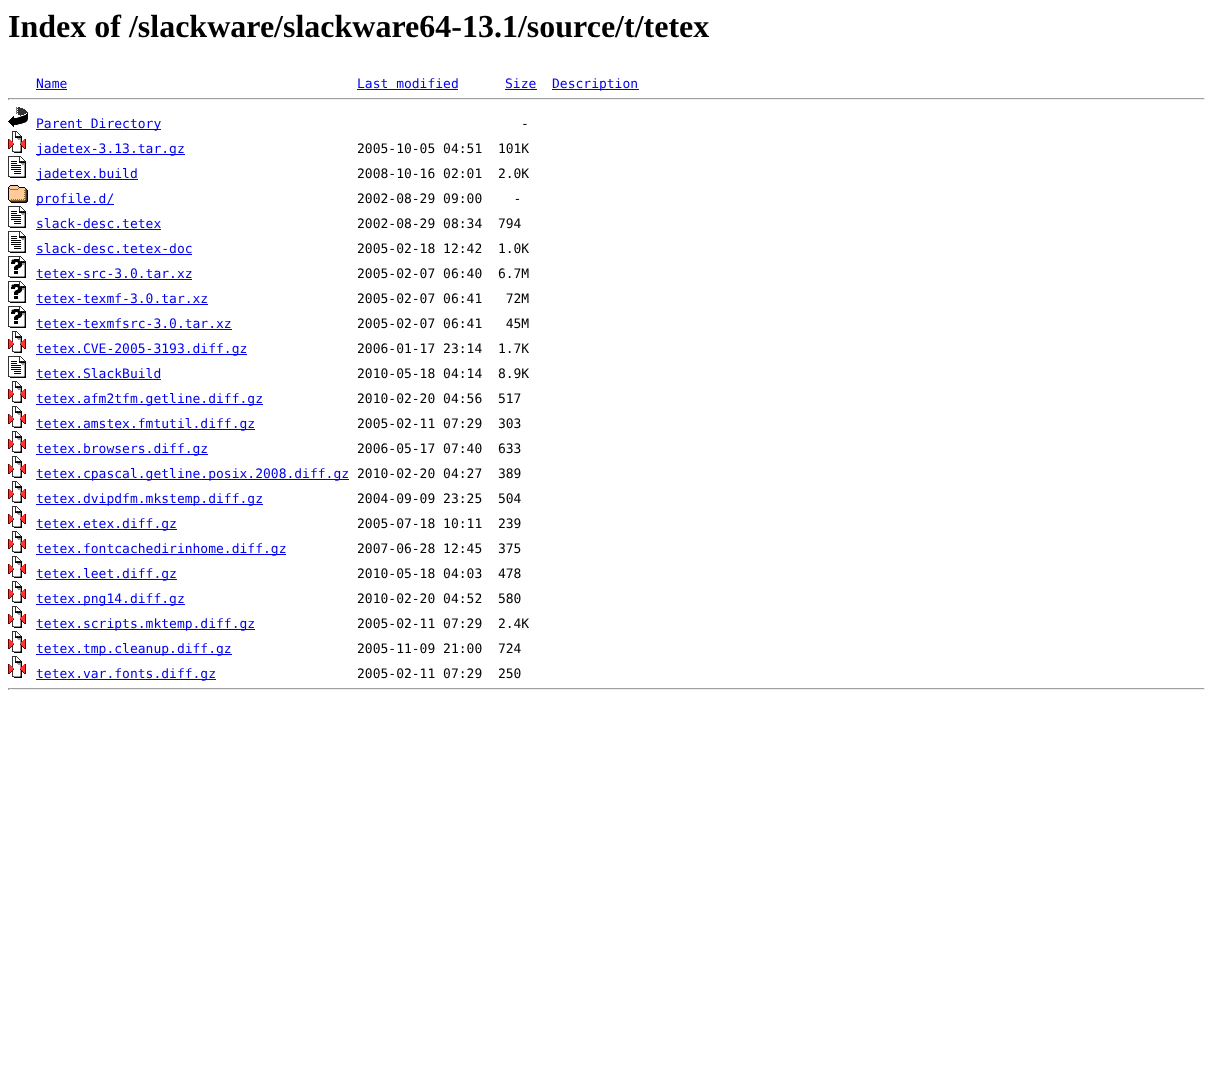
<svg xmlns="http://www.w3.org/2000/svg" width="1213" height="1079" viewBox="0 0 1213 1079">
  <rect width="100%" height="100%" fill="rgb(255,255,255)"/>
  <text x="8" y="37" font-family="Liberation Serif" font-size="32" font-weight="bold" fill="rgb(0,0,0)">Index of /slackware/slackware64-13.1/source/t/tetex</text>
  <text x="36" y="88" font-family="DejaVu Sans Mono" font-size="13" fill="rgb(0,0,238)">Name</text>
  <rect x="36" y="89" width="31" height="1" fill="rgb(0,0,238)"/>
  <text x="357" y="88" font-family="DejaVu Sans Mono" font-size="13" fill="rgb(0,0,238)">Last modified</text>
  <rect x="357" y="89" width="101" height="1" fill="rgb(0,0,238)"/>
  <text x="505" y="88" font-family="DejaVu Sans Mono" font-size="13" fill="rgb(0,0,238)">Size</text>
  <rect x="505" y="89" width="32" height="1" fill="rgb(0,0,238)"/>
  <rect x="552" y="89" width="87" height="1" fill="rgb(0,0,238)"/>
  <text x="552" y="88" font-family="DejaVu Sans Mono" font-size="13" fill="rgb(0,0,238)">Description</text>
  <rect x="8" y="98" width="1197" height="1" fill="rgb(159,159,159)"/>
  <rect x="1204" y="98" width="1" height="2" fill="rgb(238,238,238)"/>
  <rect x="8" y="99" width="1197" height="1" fill="rgb(238,238,238)"/>
  <rect x="8" y="98" width="1" height="2" fill="rgb(159,159,159)"/>
  <image x="8" y="107" width="20" height="20" href="pic1.png"/>
  <rect x="36" y="129" width="125" height="1" fill="rgb(0,0,238)"/>
  <text x="36" y="128" font-family="DejaVu Sans Mono" font-size="13" fill="rgb(0,0,238)">Parent Directory</text>
  <text x="521" y="128" font-family="DejaVu Sans Mono" font-size="13" fill="rgb(0,0,0)">-</text>
  <image x="8" y="131" width="18" height="22" href="pic2.png"/>
  <rect x="36" y="154" width="149" height="1" fill="rgb(0,0,238)"/>
  <text x="36" y="153" font-family="DejaVu Sans Mono" font-size="13" fill="rgb(0,0,238)">jadetex-3.13.tar.gz</text>
  <text x="357" y="153" font-family="DejaVu Sans Mono" font-size="13" fill="rgb(0,0,0)" xml:space="preserve">2005-10-05 04:51  101K</text>
  <image x="8" y="156" width="18" height="22" href="pic3.png"/>
  <rect x="36" y="179" width="102" height="1" fill="rgb(0,0,238)"/>
  <text x="36" y="178" font-family="DejaVu Sans Mono" font-size="13" fill="rgb(0,0,238)">jadetex.build</text>
  <text x="357" y="178" font-family="DejaVu Sans Mono" font-size="13" fill="rgb(0,0,0)" xml:space="preserve">2008-10-16 02:01  2.0K</text>
  <image x="8" y="185" width="20" height="18" href="pic4.png"/>
  <rect x="36" y="204" width="78" height="1" fill="rgb(0,0,238)"/>
  <text x="36" y="203" font-family="DejaVu Sans Mono" font-size="13" fill="rgb(0,0,238)">profile.d/</text>
  <text x="357" y="203" font-family="DejaVu Sans Mono" font-size="13" fill="rgb(0,0,0)" xml:space="preserve">2002-08-29 09:00    -</text>
  <image x="8" y="206" width="18" height="22" href="pic3.png"/>
  <text x="36" y="228" font-family="DejaVu Sans Mono" font-size="13" fill="rgb(0,0,238)">slack-desc.tetex</text>
  <rect x="36" y="229" width="125" height="1" fill="rgb(0,0,238)"/>
  <text x="357" y="228" font-family="DejaVu Sans Mono" font-size="13" fill="rgb(0,0,0)" xml:space="preserve">2002-08-29 08:34  794</text>
  <image x="8" y="231" width="18" height="22" href="pic3.png"/>
  <text x="36" y="253" font-family="DejaVu Sans Mono" font-size="13" fill="rgb(0,0,238)">slack-desc.tetex-doc</text>
  <rect x="36" y="254" width="156" height="1" fill="rgb(0,0,238)"/>
  <text x="357" y="253" font-family="DejaVu Sans Mono" font-size="13" fill="rgb(0,0,0)" xml:space="preserve">2005-02-18 12:42  1.0K</text>
  <image x="8" y="256" width="18" height="22" href="pic5.png"/>
  <text x="36" y="278" font-family="DejaVu Sans Mono" font-size="13" fill="rgb(0,0,238)">tetex-src-3.0.tar.xz</text>
  <rect x="36" y="279" width="156" height="1" fill="rgb(0,0,238)"/>
  <text x="357" y="278" font-family="DejaVu Sans Mono" font-size="13" fill="rgb(0,0,0)" xml:space="preserve">2005-02-07 06:40  6.7M</text>
  <image x="8" y="281" width="18" height="22" href="pic5.png"/>
  <text x="36" y="303" font-family="DejaVu Sans Mono" font-size="13" fill="rgb(0,0,238)">tetex-texmf-3.0.tar.xz</text>
  <rect x="36" y="304" width="172" height="1" fill="rgb(0,0,238)"/>
  <text x="357" y="303" font-family="DejaVu Sans Mono" font-size="13" fill="rgb(0,0,0)" xml:space="preserve">2005-02-07 06:41   72M</text>
  <image x="8" y="306" width="18" height="22" href="pic5.png"/>
  <text x="36" y="328" font-family="DejaVu Sans Mono" font-size="13" fill="rgb(0,0,238)">tetex-texmfsrc-3.0.tar.xz</text>
  <rect x="36" y="329" width="196" height="1" fill="rgb(0,0,238)"/>
  <text x="357" y="328" font-family="DejaVu Sans Mono" font-size="13" fill="rgb(0,0,0)" xml:space="preserve">2005-02-07 06:41   45M</text>
  <image x="8" y="331" width="18" height="22" href="pic2.png"/>
  <rect x="36" y="354" width="211" height="1" fill="rgb(0,0,238)"/>
  <text x="36" y="353" font-family="DejaVu Sans Mono" font-size="13" fill="rgb(0,0,238)">tetex.CVE-2005-3193.diff.gz</text>
  <text x="357" y="353" font-family="DejaVu Sans Mono" font-size="13" fill="rgb(0,0,0)" xml:space="preserve">2006-01-17 23:14  1.7K</text>
  <image x="8" y="356" width="18" height="22" href="pic3.png"/>
  <text x="36" y="378" font-family="DejaVu Sans Mono" font-size="13" fill="rgb(0,0,238)">tetex.SlackBuild</text>
  <rect x="36" y="379" width="125" height="1" fill="rgb(0,0,238)"/>
  <text x="357" y="378" font-family="DejaVu Sans Mono" font-size="13" fill="rgb(0,0,0)" xml:space="preserve">2010-05-18 04:14  8.9K</text>
  <image x="8" y="381" width="18" height="22" href="pic2.png"/>
  <rect x="36" y="404" width="227" height="1" fill="rgb(0,0,238)"/>
  <text x="36" y="403" font-family="DejaVu Sans Mono" font-size="13" fill="rgb(0,0,238)">tetex.afm2tfm.getline.diff.gz</text>
  <text x="357" y="403" font-family="DejaVu Sans Mono" font-size="13" fill="rgb(0,0,0)" xml:space="preserve">2010-02-20 04:56  517</text>
  <image x="8" y="406" width="18" height="22" href="pic2.png"/>
  <rect x="36" y="429" width="219" height="1" fill="rgb(0,0,238)"/>
  <text x="36" y="428" font-family="DejaVu Sans Mono" font-size="13" fill="rgb(0,0,238)">tetex.amstex.fmtutil.diff.gz</text>
  <text x="357" y="428" font-family="DejaVu Sans Mono" font-size="13" fill="rgb(0,0,0)" xml:space="preserve">2005-02-11 07:29  303</text>
  <image x="8" y="431" width="18" height="22" href="pic2.png"/>
  <rect x="36" y="454" width="172" height="1" fill="rgb(0,0,238)"/>
  <text x="36" y="453" font-family="DejaVu Sans Mono" font-size="13" fill="rgb(0,0,238)">tetex.browsers.diff.gz</text>
  <text x="357" y="453" font-family="DejaVu Sans Mono" font-size="13" fill="rgb(0,0,0)" xml:space="preserve">2006-05-17 07:40  633</text>
  <image x="8" y="456" width="18" height="22" href="pic2.png"/>
  <rect x="36" y="479" width="313" height="1" fill="rgb(0,0,238)"/>
  <text x="36" y="478" font-family="DejaVu Sans Mono" font-size="13" fill="rgb(0,0,238)">tetex.cpascal.getline.posix.2008.diff.gz</text>
  <text x="357" y="478" font-family="DejaVu Sans Mono" font-size="13" fill="rgb(0,0,0)" xml:space="preserve">2010-02-20 04:27  389</text>
  <image x="8" y="481" width="18" height="22" href="pic2.png"/>
  <rect x="36" y="504" width="227" height="1" fill="rgb(0,0,238)"/>
  <text x="36" y="503" font-family="DejaVu Sans Mono" font-size="13" fill="rgb(0,0,238)">tetex.dvipdfm.mkstemp.diff.gz</text>
  <text x="357" y="503" font-family="DejaVu Sans Mono" font-size="13" fill="rgb(0,0,0)" xml:space="preserve">2004-09-09 23:25  504</text>
  <image x="8" y="506" width="18" height="22" href="pic2.png"/>
  <rect x="36" y="529" width="141" height="1" fill="rgb(0,0,238)"/>
  <text x="36" y="528" font-family="DejaVu Sans Mono" font-size="13" fill="rgb(0,0,238)">tetex.etex.diff.gz</text>
  <text x="357" y="528" font-family="DejaVu Sans Mono" font-size="13" fill="rgb(0,0,0)" xml:space="preserve">2005-07-18 10:11  239</text>
  <image x="8" y="531" width="18" height="22" href="pic2.png"/>
  <rect x="36" y="554" width="250" height="1" fill="rgb(0,0,238)"/>
  <text x="36" y="553" font-family="DejaVu Sans Mono" font-size="13" fill="rgb(0,0,238)">tetex.fontcachedirinhome.diff.gz</text>
  <text x="357" y="553" font-family="DejaVu Sans Mono" font-size="13" fill="rgb(0,0,0)" xml:space="preserve">2007-06-28 12:45  375</text>
  <image x="8" y="556" width="18" height="22" href="pic2.png"/>
  <rect x="36" y="579" width="141" height="1" fill="rgb(0,0,238)"/>
  <text x="36" y="578" font-family="DejaVu Sans Mono" font-size="13" fill="rgb(0,0,238)">tetex.leet.diff.gz</text>
  <text x="357" y="578" font-family="DejaVu Sans Mono" font-size="13" fill="rgb(0,0,0)" xml:space="preserve">2010-05-18 04:03  478</text>
  <image x="8" y="581" width="18" height="22" href="pic2.png"/>
  <rect x="36" y="604" width="149" height="1" fill="rgb(0,0,238)"/>
  <text x="36" y="603" font-family="DejaVu Sans Mono" font-size="13" fill="rgb(0,0,238)">tetex.png14.diff.gz</text>
  <text x="357" y="603" font-family="DejaVu Sans Mono" font-size="13" fill="rgb(0,0,0)" xml:space="preserve">2010-02-20 04:52  580</text>
  <image x="8" y="606" width="18" height="22" href="pic2.png"/>
  <rect x="36" y="629" width="219" height="1" fill="rgb(0,0,238)"/>
  <text x="36" y="628" font-family="DejaVu Sans Mono" font-size="13" fill="rgb(0,0,238)">tetex.scripts.mktemp.diff.gz</text>
  <text x="357" y="628" font-family="DejaVu Sans Mono" font-size="13" fill="rgb(0,0,0)" xml:space="preserve">2005-02-11 07:29  2.4K</text>
  <image x="8" y="631" width="18" height="22" href="pic2.png"/>
  <rect x="36" y="654" width="196" height="1" fill="rgb(0,0,238)"/>
  <text x="36" y="653" font-family="DejaVu Sans Mono" font-size="13" fill="rgb(0,0,238)">tetex.tmp.cleanup.diff.gz</text>
  <text x="357" y="653" font-family="DejaVu Sans Mono" font-size="13" fill="rgb(0,0,0)" xml:space="preserve">2005-11-09 21:00  724</text>
  <image x="8" y="656" width="18" height="22" href="pic2.png"/>
  <rect x="36" y="679" width="180" height="1" fill="rgb(0,0,238)"/>
  <text x="36" y="678" font-family="DejaVu Sans Mono" font-size="13" fill="rgb(0,0,238)">tetex.var.fonts.diff.gz</text>
  <text x="357" y="678" font-family="DejaVu Sans Mono" font-size="13" fill="rgb(0,0,0)" xml:space="preserve">2005-02-11 07:29  250</text>
  <rect x="8" y="688" width="1197" height="1" fill="rgb(159,159,159)"/>
  <rect x="1204" y="688" width="1" height="2" fill="rgb(238,238,238)"/>
  <rect x="8" y="689" width="1197" height="1" fill="rgb(238,238,238)"/>
  <rect x="8" y="688" width="1" height="2" fill="rgb(159,159,159)"/>
</svg>
